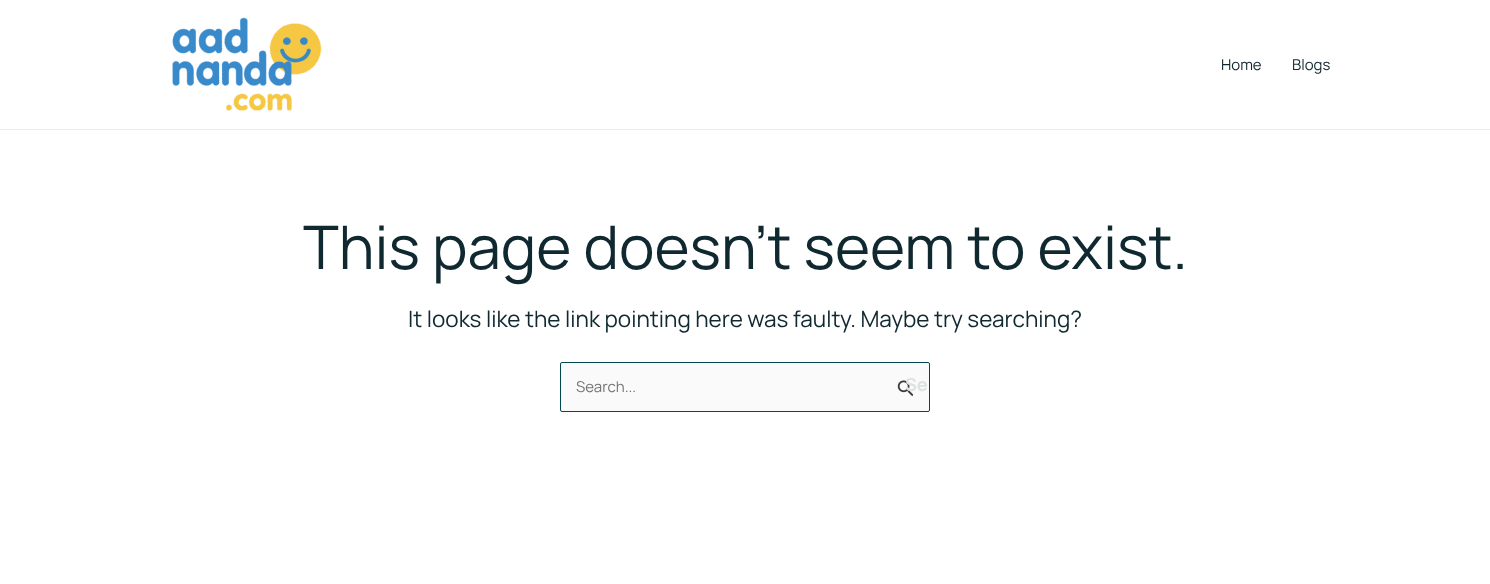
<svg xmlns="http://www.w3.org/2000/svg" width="1490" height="584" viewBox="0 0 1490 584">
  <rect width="100%" height="100%" fill="rgb(255,255,255)"/>
  <rect x="0" y="129" width="1490" height="1" fill="rgb(234,234,234)"/>
  <image x="171" y="17" width="152" height="95" href="pic1.png"/>
  <g font-family="Manrope" font-size="15" fill="rgb(16,40,48)">
    <text x="1221" y="70">Home</text>
    <text x="1292" y="70">Blogs</text>
  </g>
  <text x="303" y="269" font-family="Manrope" font-size="60" fill="rgb(16,40,48)">This page doesn't seem to exist.</text>
  <text x="408" y="327" font-family="Manrope" font-size="22.5" fill="rgb(16,40,48)">It looks like the link pointing here was faulty. Maybe try searching?</text>
  <rect x="560.5" y="362.5" width="369" height="49" rx="1.5" fill="rgb(250,250,250)" stroke="rgb(2,71,81)"/>
  <text x="576" y="392" font-family="Manrope" font-size="15" fill="rgb(117,117,117)">Search...</text>
  <image x="897" y="380" width="16" height="17" href="pic2.png"/>
  <text x="905" y="391" font-family="Manrope" font-size="18" font-weight="bold" fill="rgb(222,226,226)">Se</text>
</svg>
